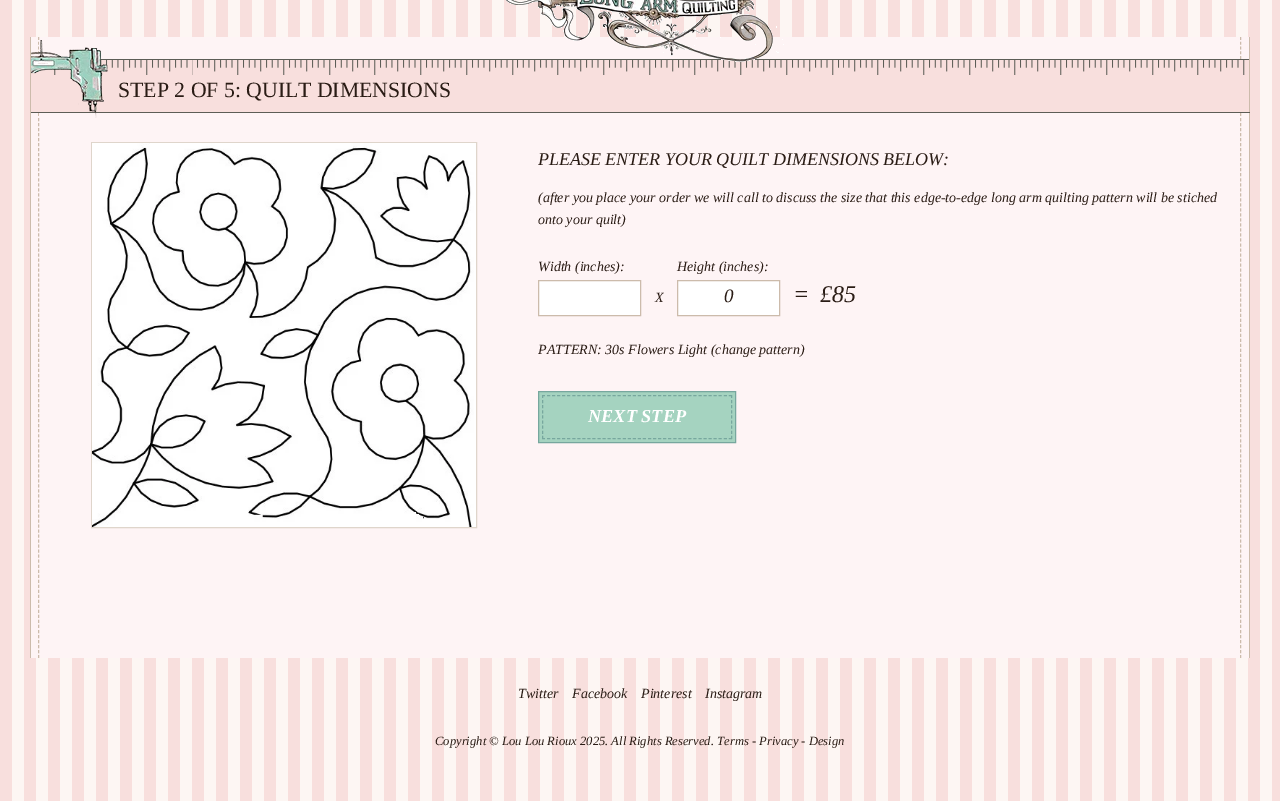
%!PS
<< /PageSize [1280 801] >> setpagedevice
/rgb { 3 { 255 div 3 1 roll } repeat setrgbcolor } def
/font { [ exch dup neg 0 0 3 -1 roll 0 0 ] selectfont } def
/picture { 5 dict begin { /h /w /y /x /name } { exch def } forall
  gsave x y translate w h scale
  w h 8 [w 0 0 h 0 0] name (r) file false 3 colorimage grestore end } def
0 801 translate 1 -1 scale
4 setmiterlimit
255 255 255 rgb
0 0 1280 801 rectfill
(img/1.rgb) 0 0 1280 801 picture
[
  [31 37 1218 22 254 244 245]
  [36 60 1212 52 248 223 221]
  [100 59 1150 1 93 93 86]
] { aload pop rgb rectfill } forall
(img/4.rgb) 31 60 1214 15 picture
(img/2.rgb) 506 0 278 62 picture
204 187 171 rgb
1249 37 1 22 rectfill
30 37 1 22 rectfill
[3 1.75] 0 setdash
1240.5 37 moveto 1240.5 59 lineto stroke
38.5 37 moveto 38.5 59 lineto stroke
[
  [1249 59 1 54 204 187 171]
  [30 112 1220 1 93 93 86]
  [30 59 1 54 204 187 171]
  [31 113 1218 545 254 244 245]
] { aload pop rgb rectfill } forall
204 187 171 rgb
[3 2.02] 0 setdash
38.5 113 moveto 38.5 658 lineto stroke
(img/3.rgb) 31 40 77 78 picture
1249 113 1 545 rectfill
30 113 1 545 rectfill
1240.5 113 moveto 1240.5 658 lineto stroke
223 213 203 rgb
[] 0 setdash
91.5 142.5 385 385 rectstroke
(img/5.rgb) 92 143 384 384 picture
255 255 255 rgb
538.5 280.5 moveto 640.5 280.5 lineto 640.5 315.5 lineto 538.5 315.5 lineto closepath gsave fill grestore
204 187 171 rgb
stroke
255 255 255 rgb
677.5 280.5 moveto 779.5 280.5 lineto 779.5 315.5 lineto 677.5 315.5 lineto closepath gsave fill grestore
204 187 171 rgb
stroke
165 211 192 rgb
538.5 391.5 moveto 735.5 391.5 lineto 735.5 442.5 lineto 538.5 442.5 lineto closepath gsave fill grestore
119 167 158 rgb
stroke
[3 2.05] 0 setdash
542 395.5 moveto 732 395.5 lineto stroke
[3 2.12] 0 setdash
731.5 395 moveto 731.5 439 lineto stroke
[3 2.05] 0 setdash
542 438.5 moveto 732 438.5 lineto stroke
[3 2.12] 0 setdash
542.5 395 moveto 542.5 439 lineto stroke
/LiberationSerif-Regular 21.75 font
42 28 21 rgb
118 97 moveto (STEP 2 OF 5: QUILT DIMENSIONS) show
/LiberationSerif-Italic 18 font
538 165 moveto (PLEASE ENTER YOUR QUILT DIMENSIONS BELOW:) show
/LiberationSerif-Italic 14 font
[
  [(\(after you place your order we will call to discuss the size that this edge-to-edge long arm quilting pattern will be stiched) 538 202]
  [(onto your quilt\)) 538 224]
  [(Width \(inches\):) 538 271]
  [(X) 655 302]
  [(Height \(inches\):) 677 271]
] { aload pop moveto show } forall
/LiberationSerif-Italic 19 font
724 302 moveto (0) show
/LiberationSerif-Italic 24 font
793 302 moveto (=) show
820 302 moveto (£85) show
/LiberationSerif-Italic 14 font
538 354 moveto (PATTERN: 30s Flowers Light \(change pattern\)) show
/LiberationSerif-BoldItalic 18.25 font
255 255 255 rgb
588 422 moveto (NEXT STEP) show
/LiberationSerif-Italic 14 font
42 28 21 rgb
[
  [(Twitter) 518 698]
  [(Facebook) 572 698]
  [(Pinterest) 641 698]
  [(Instagram) 705 698]
] { aload pop moveto show } forall
/LiberationSerif-Italic 12.6 font
435 745 moveto (Copyright © Lou Lou Rioux 2025. All Rights Reserved. Terms - Privacy - Design) show
showpage
